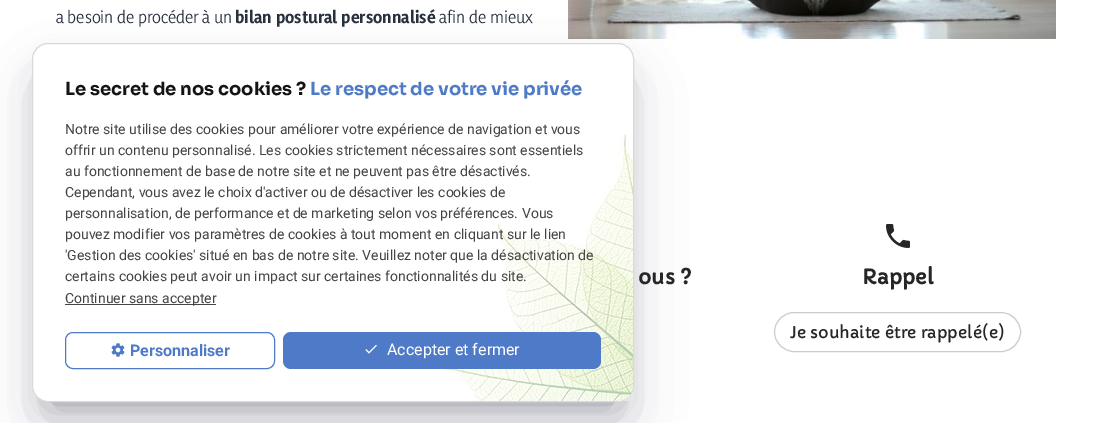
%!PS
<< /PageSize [1112 423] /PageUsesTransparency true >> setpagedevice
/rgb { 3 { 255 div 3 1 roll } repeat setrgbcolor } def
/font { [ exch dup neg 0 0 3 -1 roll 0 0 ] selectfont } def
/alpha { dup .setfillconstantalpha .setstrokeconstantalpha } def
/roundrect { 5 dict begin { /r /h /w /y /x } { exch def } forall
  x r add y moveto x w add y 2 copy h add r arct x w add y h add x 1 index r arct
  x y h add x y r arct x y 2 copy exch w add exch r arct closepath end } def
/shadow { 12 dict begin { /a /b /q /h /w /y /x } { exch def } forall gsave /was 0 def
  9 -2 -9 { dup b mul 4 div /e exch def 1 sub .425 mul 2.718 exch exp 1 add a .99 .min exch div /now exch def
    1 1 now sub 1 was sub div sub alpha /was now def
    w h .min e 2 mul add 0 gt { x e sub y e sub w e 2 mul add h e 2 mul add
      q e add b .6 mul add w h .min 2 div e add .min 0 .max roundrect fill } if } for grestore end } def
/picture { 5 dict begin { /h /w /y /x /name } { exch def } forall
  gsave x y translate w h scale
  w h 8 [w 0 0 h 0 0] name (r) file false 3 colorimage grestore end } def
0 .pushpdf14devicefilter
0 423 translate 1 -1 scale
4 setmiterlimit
255 255 255 rgb
0 0 1112 423 rectfill
(img/1.rgb) 568 0 488 39 picture
(img/2.rgb) 886 224 24 24 picture
204 204 204 rgb
774.5 312.5 246 39 19.5 roundrect stroke
0 0 0 rgb
50 79 566 323 0 18 0.3 shadow
50 50 93 rgb
44 85 578 335 4 30 0.25 shadow
255 255 255 rgb
32.5 43.5 601 358 15.5 roundrect gsave fill grestore
217 217 217 rgb
stroke
68 68 68 rgb
65 304 151 1 rectfill
78 122 199 rgb
65.5 332.5 209 36 7.5 roundrect stroke
(img/3.rgb) 111 343 14 14 picture
(img/5.rgb) 433 131 200 270 picture
283 332 318 37 8 roundrect fill
(img/4.rgb) 365 344 12 10 picture
/Yaldevi-Regular 16 font
40 47 61 rgb
56 23 moveto (a besoin de procéder à un) show
/Yaldevi-Bold 16 font
235 23 moveto (bilan postural personnalisé) show
/Yaldevi-Regular 16 font
439 23 moveto (afin de mieux) show
/Capriola-Bold 20 font
38 38 38 rgb
638 284 moveto (ous ?) show
862 284 moveto (Rappel) show
/Capriola-Regular 16 font
790 338 moveto (Je souhaite être rappelé\(e\)) show
/Sora-Bold 18 font
20 20 20 rgb
65 95 moveto (Le secret de nos cookies ?) show
78 122 199 rgb
310 95 moveto (Le respect de votre vie privée) show
/Roboto-Regular 14 font
68 68 68 rgb
[
  [(Notre site utilise des cookies pour améliorer votre expérience de navigation et vous) 65 134]
  [(offrir un contenu personnalisé. Les cookies strictement nécessaires sont essentiels) 65 155]
  [(au fonctionnement de base de notre site et ne peuvent pas être désactivés.) 65 176]
  [(Cependant, vous avez le choix d'activer ou de désactiver les cookies de) 65 197]
  [(personnalisation, de performance et de marketing selon vos préférences. Vous) 65 218]
  [(pouvez modifier vos paramètres de cookies à tout moment en cliquant sur le lien) 65 239]
  [('Gestion des cookies' situé en bas de notre site. Veuillez noter que la désactivation de) 65 260]
  [(certains cookies peut avoir un impact sur certaines fonctionnalités du site.) 65 281]
  [(Continuer sans accepter) 65 303]
] { aload pop moveto show } forall
/Roboto-Bold 16 font
78 122 199 rgb
130 356 moveto (Personnaliser) show
/Roboto-Regular 16 font
255 255 255 rgb
387 355 moveto (Accepter et fermer) show
.poppdf14devicefilter showpage
